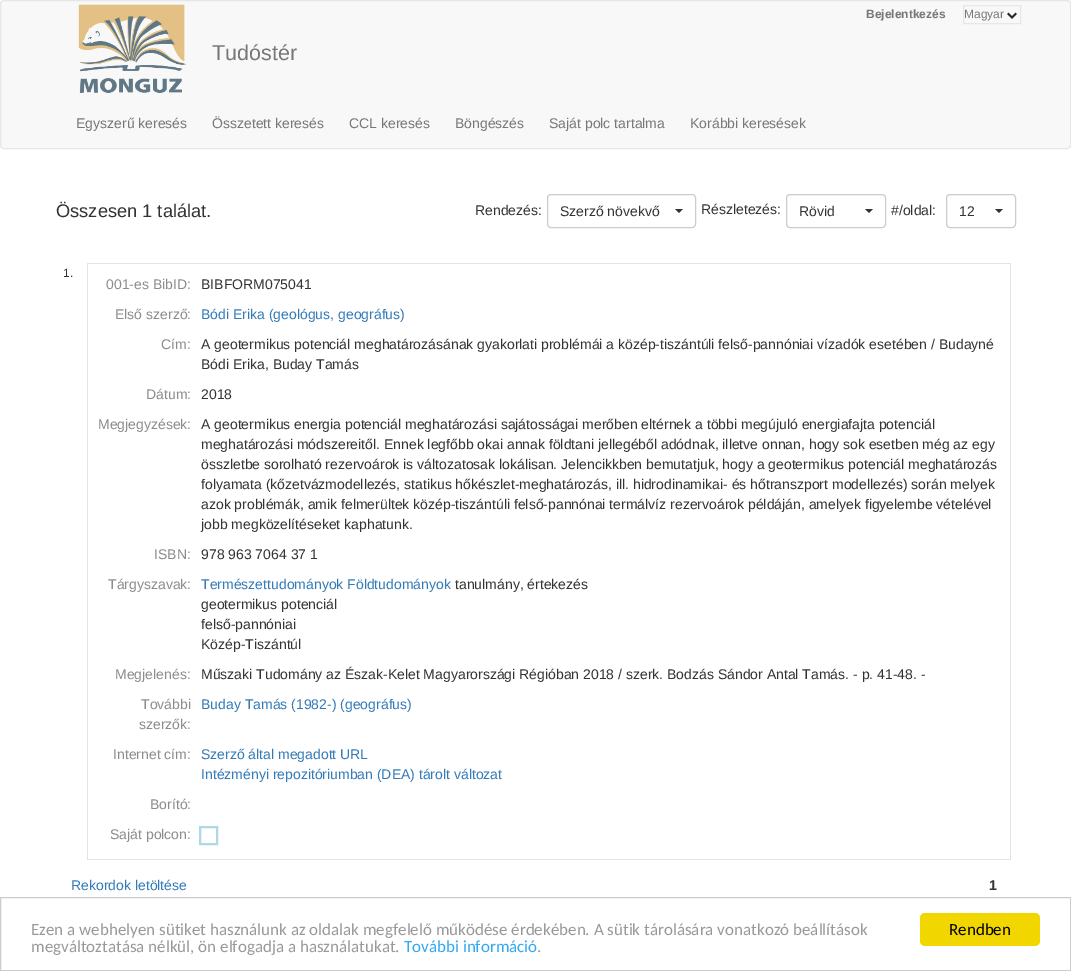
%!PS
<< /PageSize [1071 971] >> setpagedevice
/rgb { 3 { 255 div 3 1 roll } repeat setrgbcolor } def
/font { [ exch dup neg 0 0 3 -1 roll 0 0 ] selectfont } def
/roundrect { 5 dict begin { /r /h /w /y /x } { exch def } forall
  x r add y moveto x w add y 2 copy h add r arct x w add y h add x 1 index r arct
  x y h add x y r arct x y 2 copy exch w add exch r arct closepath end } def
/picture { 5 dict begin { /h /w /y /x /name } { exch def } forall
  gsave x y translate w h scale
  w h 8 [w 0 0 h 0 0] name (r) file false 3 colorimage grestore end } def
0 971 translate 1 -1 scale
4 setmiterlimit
255 255 255 rgb
0 0 1071 971 rectfill
248 248 248 rgb
0.5 0.5 1070 148 3.5 roundrect gsave fill grestore
231 231 231 rgb
stroke
(img/1.rgb) 1007 12 10 7 picture
963.5 5.5 57 18 rectstroke
(img/2.rgb) 78 4 109 89 picture
204 204 204 rgb
547.5 194.5 148 33 3.5 roundrect stroke
51 51 51 rgb
675 209 moveto 683 209 lineto 679 213 lineto closepath fill
204 204 204 rgb
786.5 194.5 99 33 3.5 roundrect stroke
51 51 51 rgb
865 209 moveto 873 209 lineto 869 213 lineto closepath fill
204 204 204 rgb
946.5 194.5 69 33 3.5 roundrect stroke
51 51 51 rgb
995 209 moveto 1003 209 lineto 999 213 lineto closepath fill
[
  [87 263 924 1 227 227 227]
  [1010 263 1 597 227 227 227]
  [87 859 924 1 227 227 227]
  [87 263 1 597 227 227 227]
] { aload pop rgb rectfill } forall
173 216 230 rgb
2 setlinewidth
200 827 17 17 rectstroke
204 204 204 rgb
1 setlinewidth
0.5 897.5 1070 73 rectstroke
241 214 0 rgb
920 913 120 33 5 roundrect fill
/LiberationSans-Bold 12 font
119 119 119 rgb
866 18 moveto (Bejelentkezés) show
/LiberationSans-Regular 12 font
964 18 moveto (Magyar) show
/LiberationSans-Regular 21.5 font
212 60 moveto (Tudóstér) show
/LiberationSans-Regular 14 font
[
  [(Egyszerű keresés) 76 128]
  [(Összetett keresés) 212 128]
  [(CCL keresés) 349 128]
  [(Böngészés) 455 128]
  [(Saját polc tartalma) 549 128]
  [(Korábbi keresések) 690 128]
] { aload pop moveto show } forall
/LiberationSans-Regular 18.25 font
51 51 51 rgb
56 217 moveto (Összesen 1 találat.) show
/LiberationSans-Regular 14 font
[
  [(Rendezés:) 475 215]
  [(Szerző növekvő) 560 216]
  [(Részletezés:) 701 214]
  [(Rövid) 799 216]
  [(#/oldal:) 891 215]
  [(12) 959 216]
] { aload pop moveto show } forall
/LiberationSans-Regular 12 font
63 277 moveto (1.) show
/LiberationSans-Regular 14 font
140 140 140 rgb
106 289 moveto (001-es BibID:) show
51 51 51 rgb
201 289 moveto (BIBFORM075041) show
140 140 140 rgb
115 319 moveto (Első szerző:) show
51 122 183 rgb
201 319 moveto (Bódi Erika \(geológus, geográfus\)) show
140 140 140 rgb
161 349 moveto (Cím:) show
51 51 51 rgb
201 349 moveto (A geotermikus potenciál meghatározásának gyakorlati problémái a közép-tiszántúli felső-pannóniai vízadók esetében / Budayné) show
201 369 moveto (Bódi Erika, Buday Tamás) show
140 140 140 rgb
146 399 moveto (Dátum:) show
51 51 51 rgb
201 399 moveto (2018) show
140 140 140 rgb
98 429 moveto (Megjegyzések:) show
51 51 51 rgb
[
  [(A geotermikus energia potenciál meghatározási sajátosságai merőben eltérnek a többi megújuló energiafajta potenciál) 201 429]
  [(meghatározási módszereitől. Ennek legfőbb okai annak földtani jellegéből adódnak, illetve onnan, hogy sok esetben még az egy) 201 449]
  [(összletbe sorolható rezervoárok is változatosak lokálisan. Jelencikkben bemutatjuk, hogy a geotermikus potenciál meghatározás) 201 469]
  [(folyamata \(kőzetvázmodellezés, statikus hőkészlet-meghatározás, ill. hidrodinamikai- és hőtranszport modellezés\) során melyek) 201 489]
  [(azok problémák, amik felmerültek közép-tiszántúli felső-pannónai termálvíz rezervoárok példáján, amelyek figyelembe vételével) 201 509]
  [(jobb megközelítéseket kaphatunk.) 201 529]
] { aload pop moveto show } forall
140 140 140 rgb
154 559 moveto (ISBN:) show
51 51 51 rgb
201 559 moveto (978 963 7064 37 1) show
140 140 140 rgb
108 589 moveto (Tárgyszavak:) show
51 122 183 rgb
201 589 moveto (Természettudományok Földtudományok) show
51 51 51 rgb
[
  [(tanulmány, értekezés) 455 589]
  [(geotermikus potenciál) 201 609]
  [(felső-pannóniai) 201 629]
  [(Közép-Tiszántúl) 201 649]
] { aload pop moveto show } forall
140 140 140 rgb
115 679 moveto (Megjelenés:) show
51 51 51 rgb
201 679 moveto (Műszaki Tudomány az Észak-Kelet Magyarországi Régióban 2018 / szerk. Bodzás Sándor Antal Tamás. - p. 41-48. -) show
140 140 140 rgb
141 709 moveto (További) show
139 729 moveto (szerzők:) show
51 122 183 rgb
201 709 moveto (Buday Tamás \(1982-\) \(geográfus\)) show
140 140 140 rgb
113 759 moveto (Internet cím:) show
51 122 183 rgb
201 759 moveto (Szerző által megadott URL) show
201 779 moveto (Intézményi repozitóriumban \(DEA\) tárolt változat) show
140 140 140 rgb
150 809 moveto (Borító:) show
110 839 moveto (Saját polcon:) show
51 122 183 rgb
71 890 moveto (Rekordok letöltése) show
/LiberationSans-Bold 14 font
51 51 51 rgb
989 890 moveto (1) show
/Carlito-Regular 17 font
153 153 153 rgb
31 935 moveto (Ezen a webhelyen sütiket használunk az oldalak megfelelő működése érdekében. A sütik tárolására vonatkozó beállítások) show
31 952 moveto (megváltoztatása nélkül, ön elfogadja a használatukat.) show
49 168 240 rgb
404 952 moveto (További információ) show
153 153 153 rgb
537 952 moveto (.) show
0 0 0 rgb
949 935 moveto (Rendben) show
showpage
